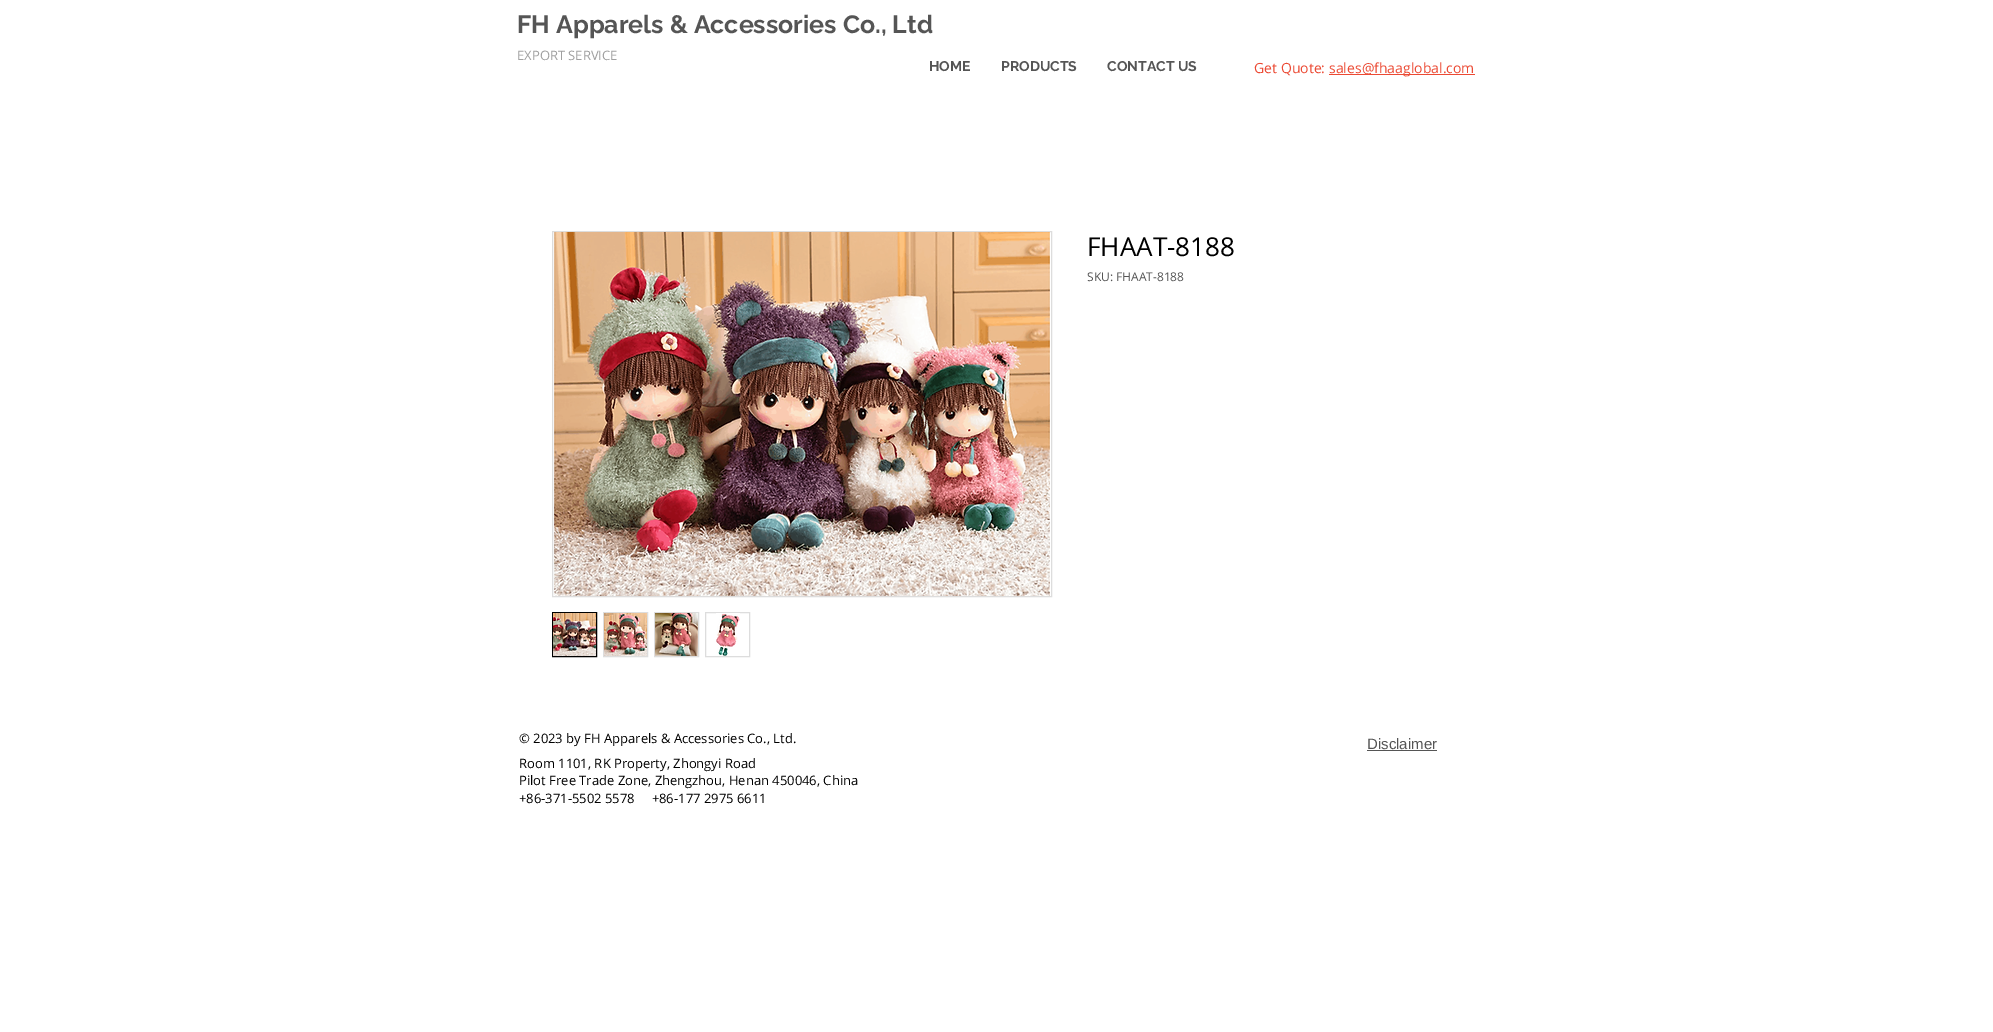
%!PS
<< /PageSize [1993 1032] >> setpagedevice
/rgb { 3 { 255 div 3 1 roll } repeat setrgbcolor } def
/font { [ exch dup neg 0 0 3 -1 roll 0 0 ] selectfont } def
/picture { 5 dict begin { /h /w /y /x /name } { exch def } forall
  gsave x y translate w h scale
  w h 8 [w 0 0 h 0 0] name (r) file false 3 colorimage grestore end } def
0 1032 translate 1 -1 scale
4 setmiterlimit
255 255 255 rgb
0 0 1993 1032 rectfill
236 74 52 rgb
1329 74 146 1 rectfill
221 221 221 rgb
552.5 231.5 499 365 rectstroke
(img/1.rgb) 554 232 496 364 picture
0 0 0 rgb
552.5 612.5 44 44 rectstroke
(img/2.rgb) 553 613 43 43 picture
221 221 221 rgb
603.5 612.5 44 44 rectstroke
(img/3.rgb) 604 613 43 43 picture
654.5 612.5 44 44 rectstroke
(img/4.rgb) 655 613 43 43 picture
705.5 612.5 44 44 rectstroke
(img/5.rgb) 716 613 24 43 picture
85 85 85 rgb
1367 750 70 1 rectfill
/Raleway-Bold 25 font
517 33 moveto (FH Apparels & Accessories Co., Ltd) show
/OpenSans-Regular 13 font
160 160 160 rgb
517 60 moveto (EXPORT SERVICE) show
/Raleway-Bold 14 font
85 85 85 rgb
[
  [(HOME) 929 71]
  [(PRODUCTS) 1001 71]
  [(CONTACT US) 1107 71]
] { aload pop moveto show } forall
/OpenSans-Regular 14 font
236 74 52 rgb
1254 73 moveto (Get Quote:) show
1329 73 moveto (sales@fhaaglobal.com) show
/OpenSans-Regular 26 font
0 0 0 rgb
1087 256 moveto (FHAAT-8188) show
/OpenSans-Regular 12 font
85 85 85 rgb
1087 281 moveto (SKU: FHAAT-8188) show
/OpenSans-Regular 13 font
0 0 0 rgb
[
  [(© 2023 by FH Apparels & Accessories Co., Ltd.) 519 743]
  [(Room 1101, RK Property, Zhongyi Road) 519 768]
  [(Pilot Free Trade Zone, Zhengzhou, Henan 450046, China) 519 785]
  [(+86-371-5502 5578     +86-177 2975 6611) 519 803]
] { aload pop moveto show } forall
/LiberationSans-Regular 15 font
85 85 85 rgb
1367 749 moveto (Disclaimer) show
showpage
